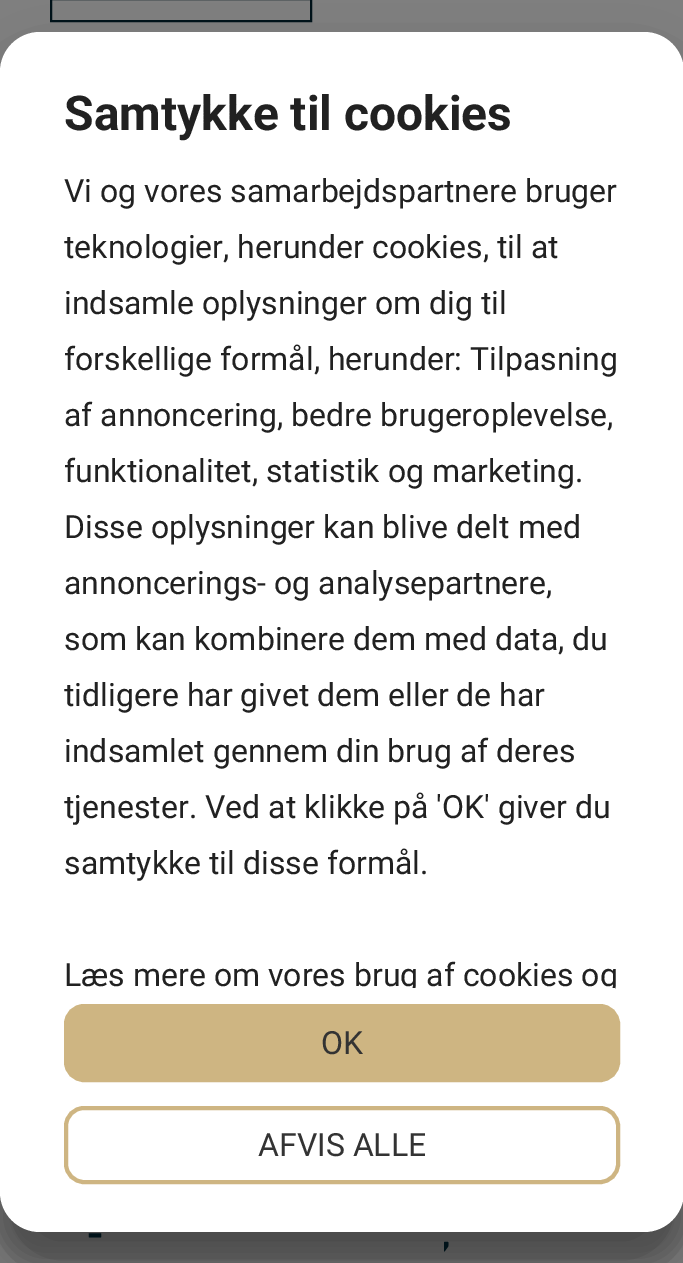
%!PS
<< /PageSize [683 1263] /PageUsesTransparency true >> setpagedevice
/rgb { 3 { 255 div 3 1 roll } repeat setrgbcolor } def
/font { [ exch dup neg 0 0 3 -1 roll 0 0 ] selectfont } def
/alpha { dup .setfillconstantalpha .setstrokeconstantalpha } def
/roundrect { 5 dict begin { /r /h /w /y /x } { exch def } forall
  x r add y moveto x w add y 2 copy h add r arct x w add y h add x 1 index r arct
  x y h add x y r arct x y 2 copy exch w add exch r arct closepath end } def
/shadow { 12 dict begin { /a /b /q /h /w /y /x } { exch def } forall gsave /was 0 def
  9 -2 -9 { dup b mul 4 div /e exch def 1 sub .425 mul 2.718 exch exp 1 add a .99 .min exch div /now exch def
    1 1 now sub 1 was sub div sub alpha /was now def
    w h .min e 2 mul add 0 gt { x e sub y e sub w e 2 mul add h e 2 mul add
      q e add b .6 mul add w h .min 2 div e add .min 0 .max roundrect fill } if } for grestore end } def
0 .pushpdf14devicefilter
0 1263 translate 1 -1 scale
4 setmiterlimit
128 128 128 rgb
0 0 683 1263 rectfill
0 0 0 rgb
0 62 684 1200 40 12 0.22 shadow
0 18 25 rgb
2 setlinewidth
51 -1 260 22 rectstroke
0 0 0 rgb
0 70 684 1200 40 38 0.3 shadow
255 255 255 rgb
0 32 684 1200 40 roundrect fill
206 181 130 rgb
66 1006 552 74 18 roundrect gsave fill grestore
4 setlinewidth
stroke
66 1108 552 74 18 roundrect stroke
/Roboto-Bold 48 font
33 33 33 rgb
64 130 moveto (Samtykke til cookies) show
/Roboto-Regular 32 font
[
  [(Vi og vores samarbejdspartnere bruger) 64 202]
  [(teknologier, herunder cookies, til at) 64 258]
  [(indsamle oplysninger om dig til) 64 314]
  [(forskellige formål, herunder: Tilpasning) 64 370]
  [(af annoncering, bedre brugeroplevelse,) 64 426]
  [(funktionalitet, statistik og marketing.) 64 482]
  [(Disse oplysninger kan blive delt med) 64 538]
  [(annoncerings- og analysepartnere,) 64 594]
  [(som kan kombinere dem med data, du) 64 650]
  [(tidligere har givet dem eller de har) 64 706]
  [(indsamlet gennem din brug af deres) 64 762]
  [(tjenester. Ved at klikke på 'OK' giver du) 64 818]
  [(samtykke til disse formål.) 64 874]
  [(Læs mere om vores brug af cookies og) 64 986]
] { aload pop moveto show } forall
255 255 255 rgb
402 988 213 5 rectfill
51 51 51 rgb
321 1054 moveto (OK) show
258 1156 moveto (AFVIS ALLE) show
/DINNext-Medium 44 font
0 18 25 rgb
87 1247 moveto (-) show
442 1247 moveto (,) show
.poppdf14devicefilter showpage
